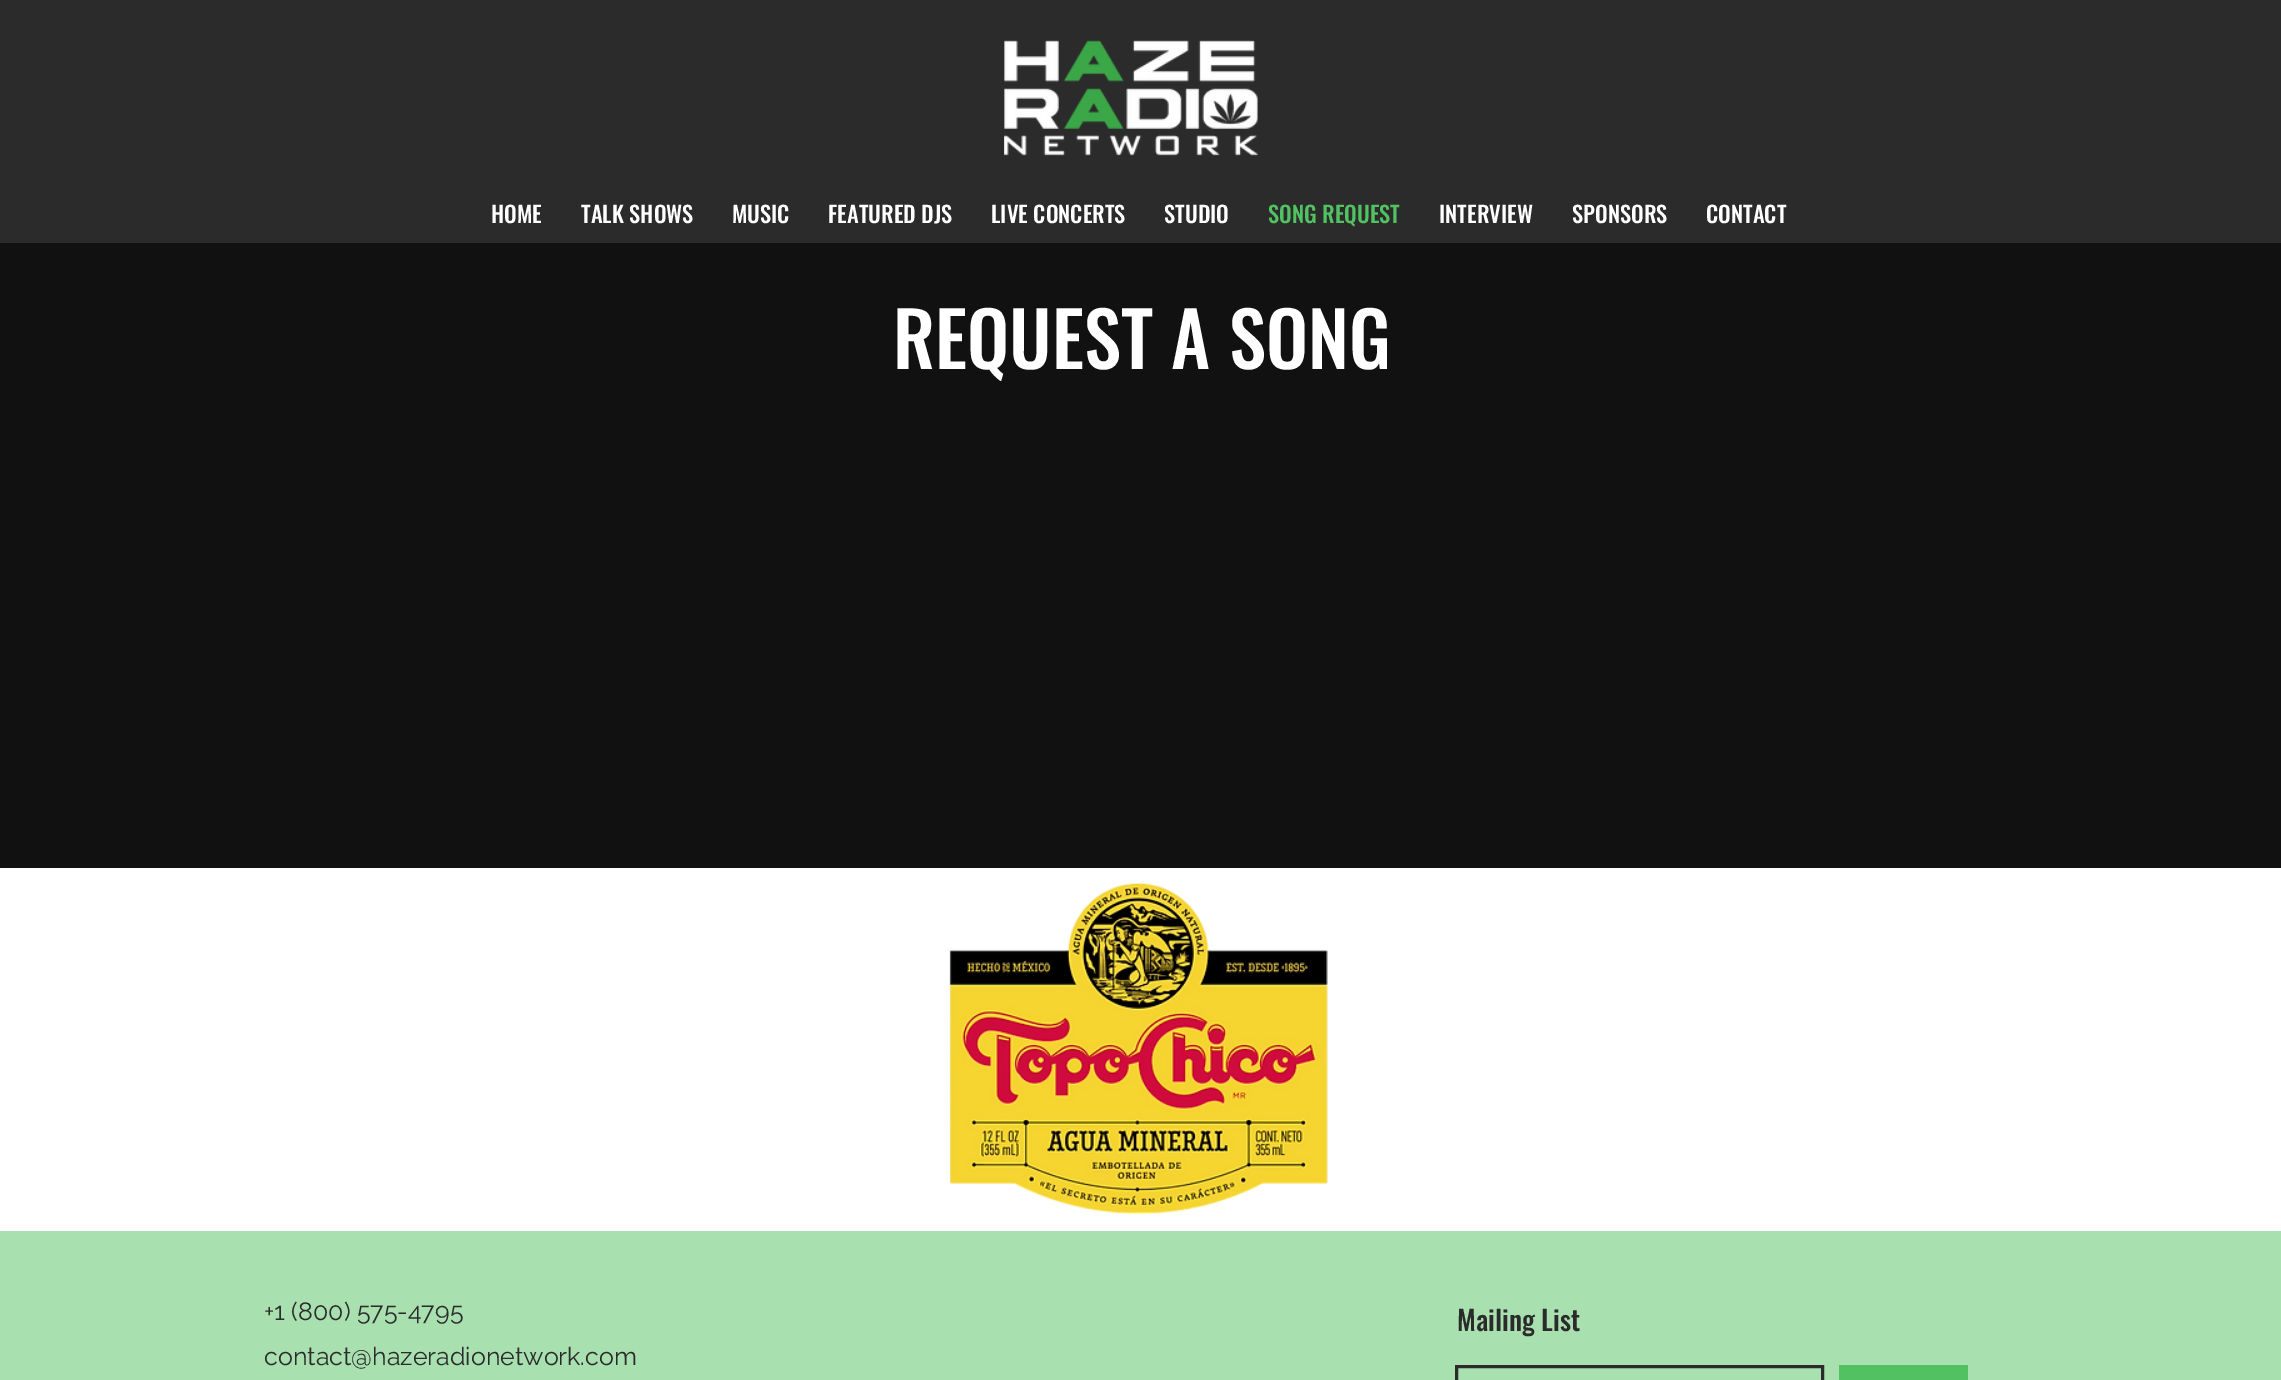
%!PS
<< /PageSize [2281 1380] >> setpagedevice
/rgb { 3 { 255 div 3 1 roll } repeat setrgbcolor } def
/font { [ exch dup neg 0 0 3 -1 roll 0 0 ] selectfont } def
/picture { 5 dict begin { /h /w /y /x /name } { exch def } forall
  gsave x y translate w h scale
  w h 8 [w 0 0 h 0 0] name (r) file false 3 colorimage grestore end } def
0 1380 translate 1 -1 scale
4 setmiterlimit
17 17 17 rgb
0 0 2281 1380 rectfill
43 43 43 rgb
0 0 2281 243 rectfill
(img/1.rgb) 1004 40 254 116 picture
255 255 255 rgb
0 868 2281 363 rectfill
(img/2.rgb) 949 882 379 332 picture
168 224 176 rgb
0 1231 2281 149 rectfill
43 43 43 rgb
3 setlinewidth
1456.5 1366.5 366 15 rectstroke
81 193 98 rgb
1839 1365 129 15 rectfill
/Oswald-Medium 22.5 font
255 255 255 rgb
[
  [(HOME) 491 223]
  [(TALK SHOWS) 581 223]
  [(MUSIC) 732 223]
  [(FEATURED DJS) 828 223]
  [(LIVE CONCERTS) 991 223]
  [(STUDIO) 1164 223]
] { aload pop moveto show } forall
81 193 98 rgb
1268 223 moveto (SONG REQUEST) show
255 255 255 rgb
[
  [(INTERVIEW) 1439 223]
  [(SPONSORS) 1572 223]
  [(CONTACT) 1706 223]
] { aload pop moveto show } forall
/Oswald-Medium 75 font
893 369 moveto (REQUEST A SONG) show
/Raleway-Regular 25 font
43 43 43 rgb
264 1320 moveto (+1 \(800\) 575-4795) show
264 1365 moveto (contact@hazeradionetwork.com) show
/Oswald-Medium 27.5 font
1457 1331 moveto (Mailing List) show
showpage
